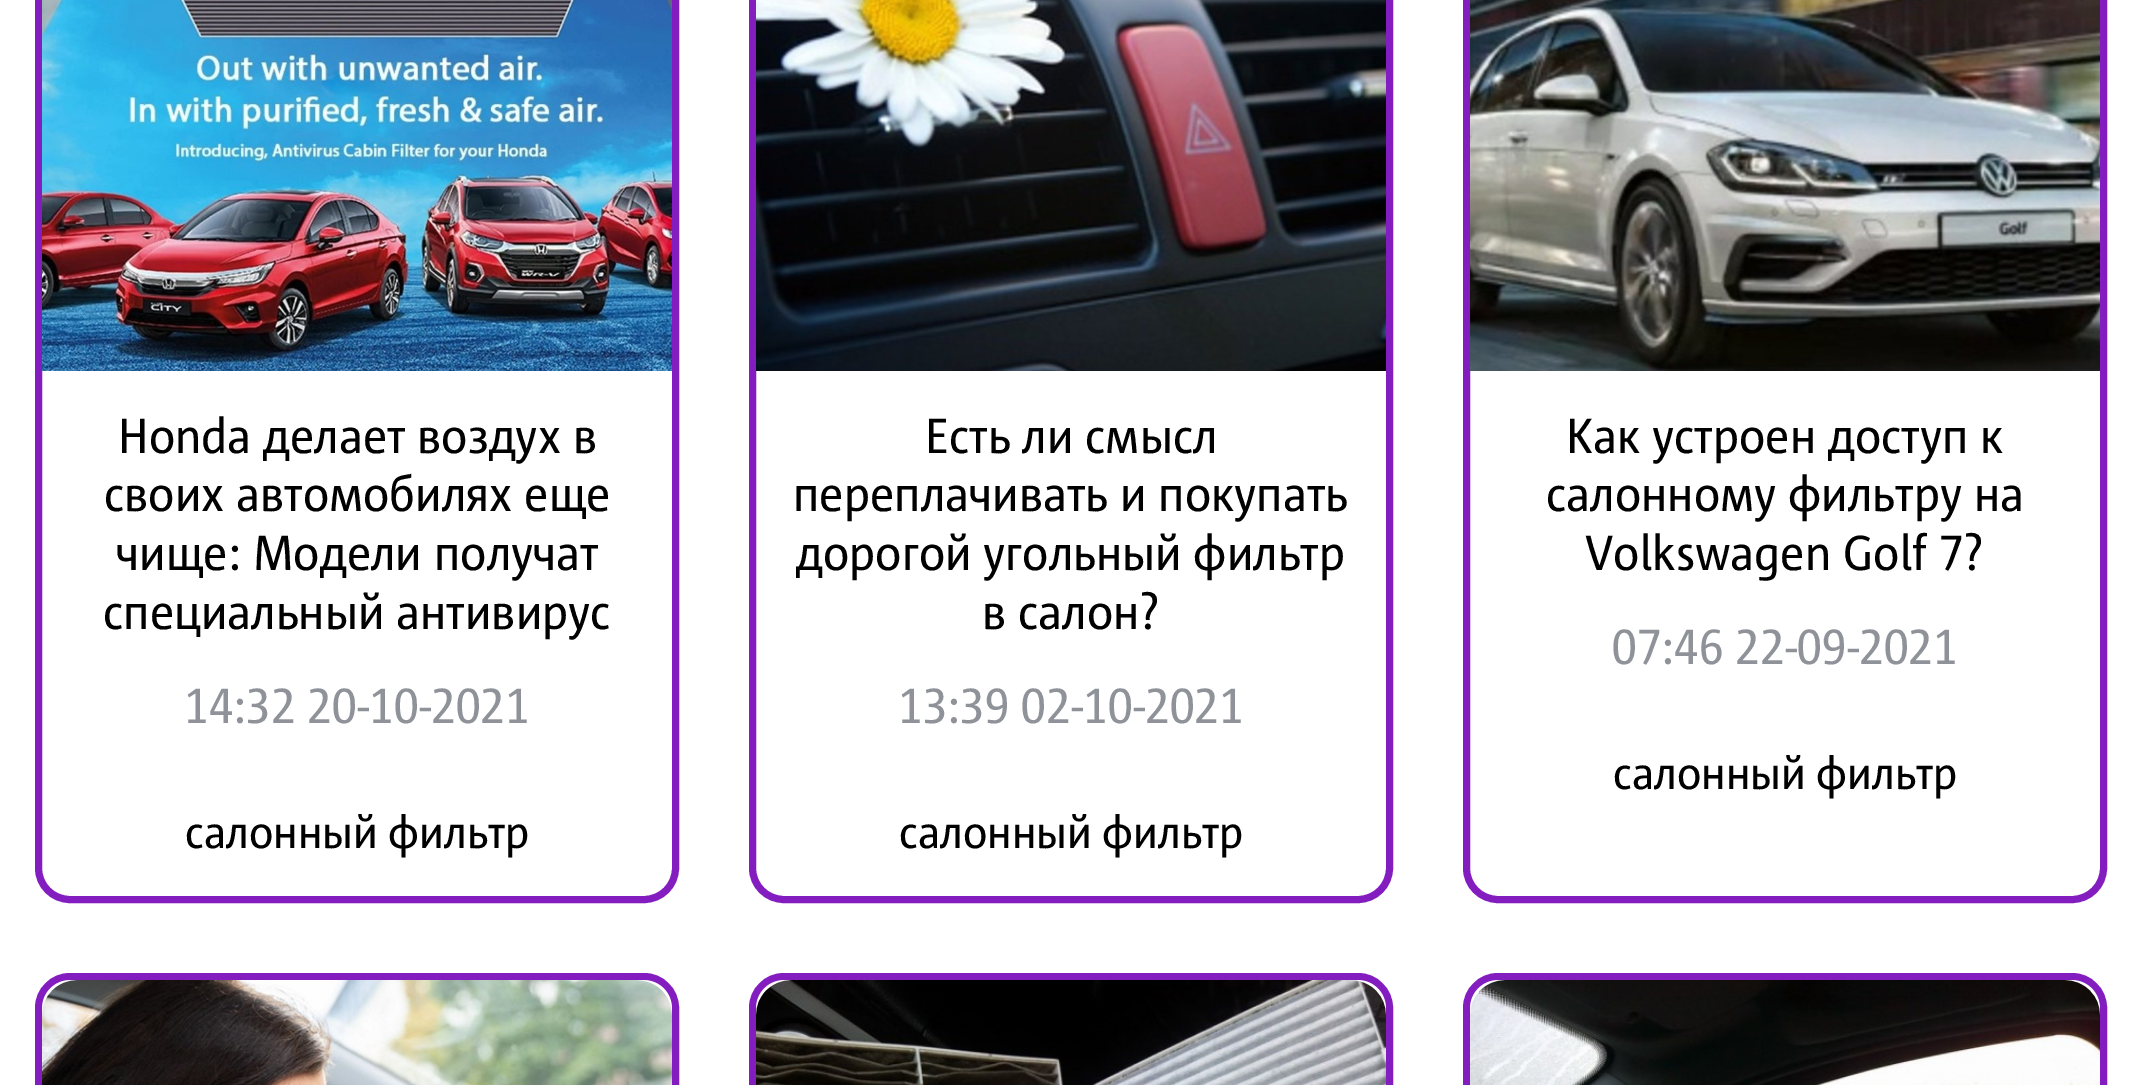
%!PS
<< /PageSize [2141 1085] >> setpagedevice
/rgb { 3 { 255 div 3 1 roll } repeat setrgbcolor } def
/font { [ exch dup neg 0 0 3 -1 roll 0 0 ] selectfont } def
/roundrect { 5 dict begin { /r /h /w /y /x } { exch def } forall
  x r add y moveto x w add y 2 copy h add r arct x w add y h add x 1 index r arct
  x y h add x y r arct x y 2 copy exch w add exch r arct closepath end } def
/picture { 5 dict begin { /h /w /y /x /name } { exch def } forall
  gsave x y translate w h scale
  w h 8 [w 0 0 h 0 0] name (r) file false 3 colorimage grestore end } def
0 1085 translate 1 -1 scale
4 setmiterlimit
255 255 255 rgb
0 0 2141 1085 rectfill
131 29 191 rgb
7 setlinewidth
38.5 -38.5 637 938 31.5 roundrect stroke
(img/1.rgb) 42 0 630 371 picture
752.5 -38.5 637 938 31.5 roundrect stroke
(img/2.rgb) 756 0 630 371 picture
1466.5 -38.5 637 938 31.5 roundrect stroke
(img/3.rgb) 1470 0 630 371 picture
38.5 976.5 637 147 31.5 roundrect stroke
(img/4.rgb) 42 980 630 105 picture
752.5 976.5 637 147 31.5 roundrect stroke
(img/5.rgb) 756 980 630 105 picture
1466.5 976.5 637 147 31.5 roundrect stroke
(img/6.rgb) 1470 980 630 105 picture
/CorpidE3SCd-Regular 49 font
0 0 0 rgb
[
  [(Honda делает воздух в) 118 453]
  [(своих автомобилях еще) 104 511]
  [(чище: Модели получат) 116 570]
  [(специальный антивирус) 103 629]
] { aload pop moveto show } forall
143 147 153 rgb
184 723 moveto (14:32 20-10-2021) show
/CorpidE3SCd-Regular 45.5 font
0 0 0 rgb
185 848 moveto (салонный фильтр) show
/CorpidE3SCd-Regular 49 font
[
  [(Есть ли смысл) 925 453]
  [(переплачивать и покупать) 793 511]
  [(дорогой угольный фильтр) 796 570]
  [(в салон?) 982 629]
] { aload pop moveto show } forall
143 147 153 rgb
898 723 moveto (13:39 02-10-2021) show
/CorpidE3SCd-Regular 45.5 font
0 0 0 rgb
899 848 moveto (салонный фильтр) show
/CorpidE3SCd-Regular 49 font
[
  [(Как устроен доступ к) 1566 453]
  [(салонному фильтру на) 1546 511]
  [(Volkswagen Golf 7?) 1585 570]
] { aload pop moveto show } forall
143 147 153 rgb
1612 664 moveto (07:46 22-09-2021) show
/CorpidE3SCd-Regular 45.5 font
0 0 0 rgb
1613 789 moveto (салонный фильтр) show
showpage
